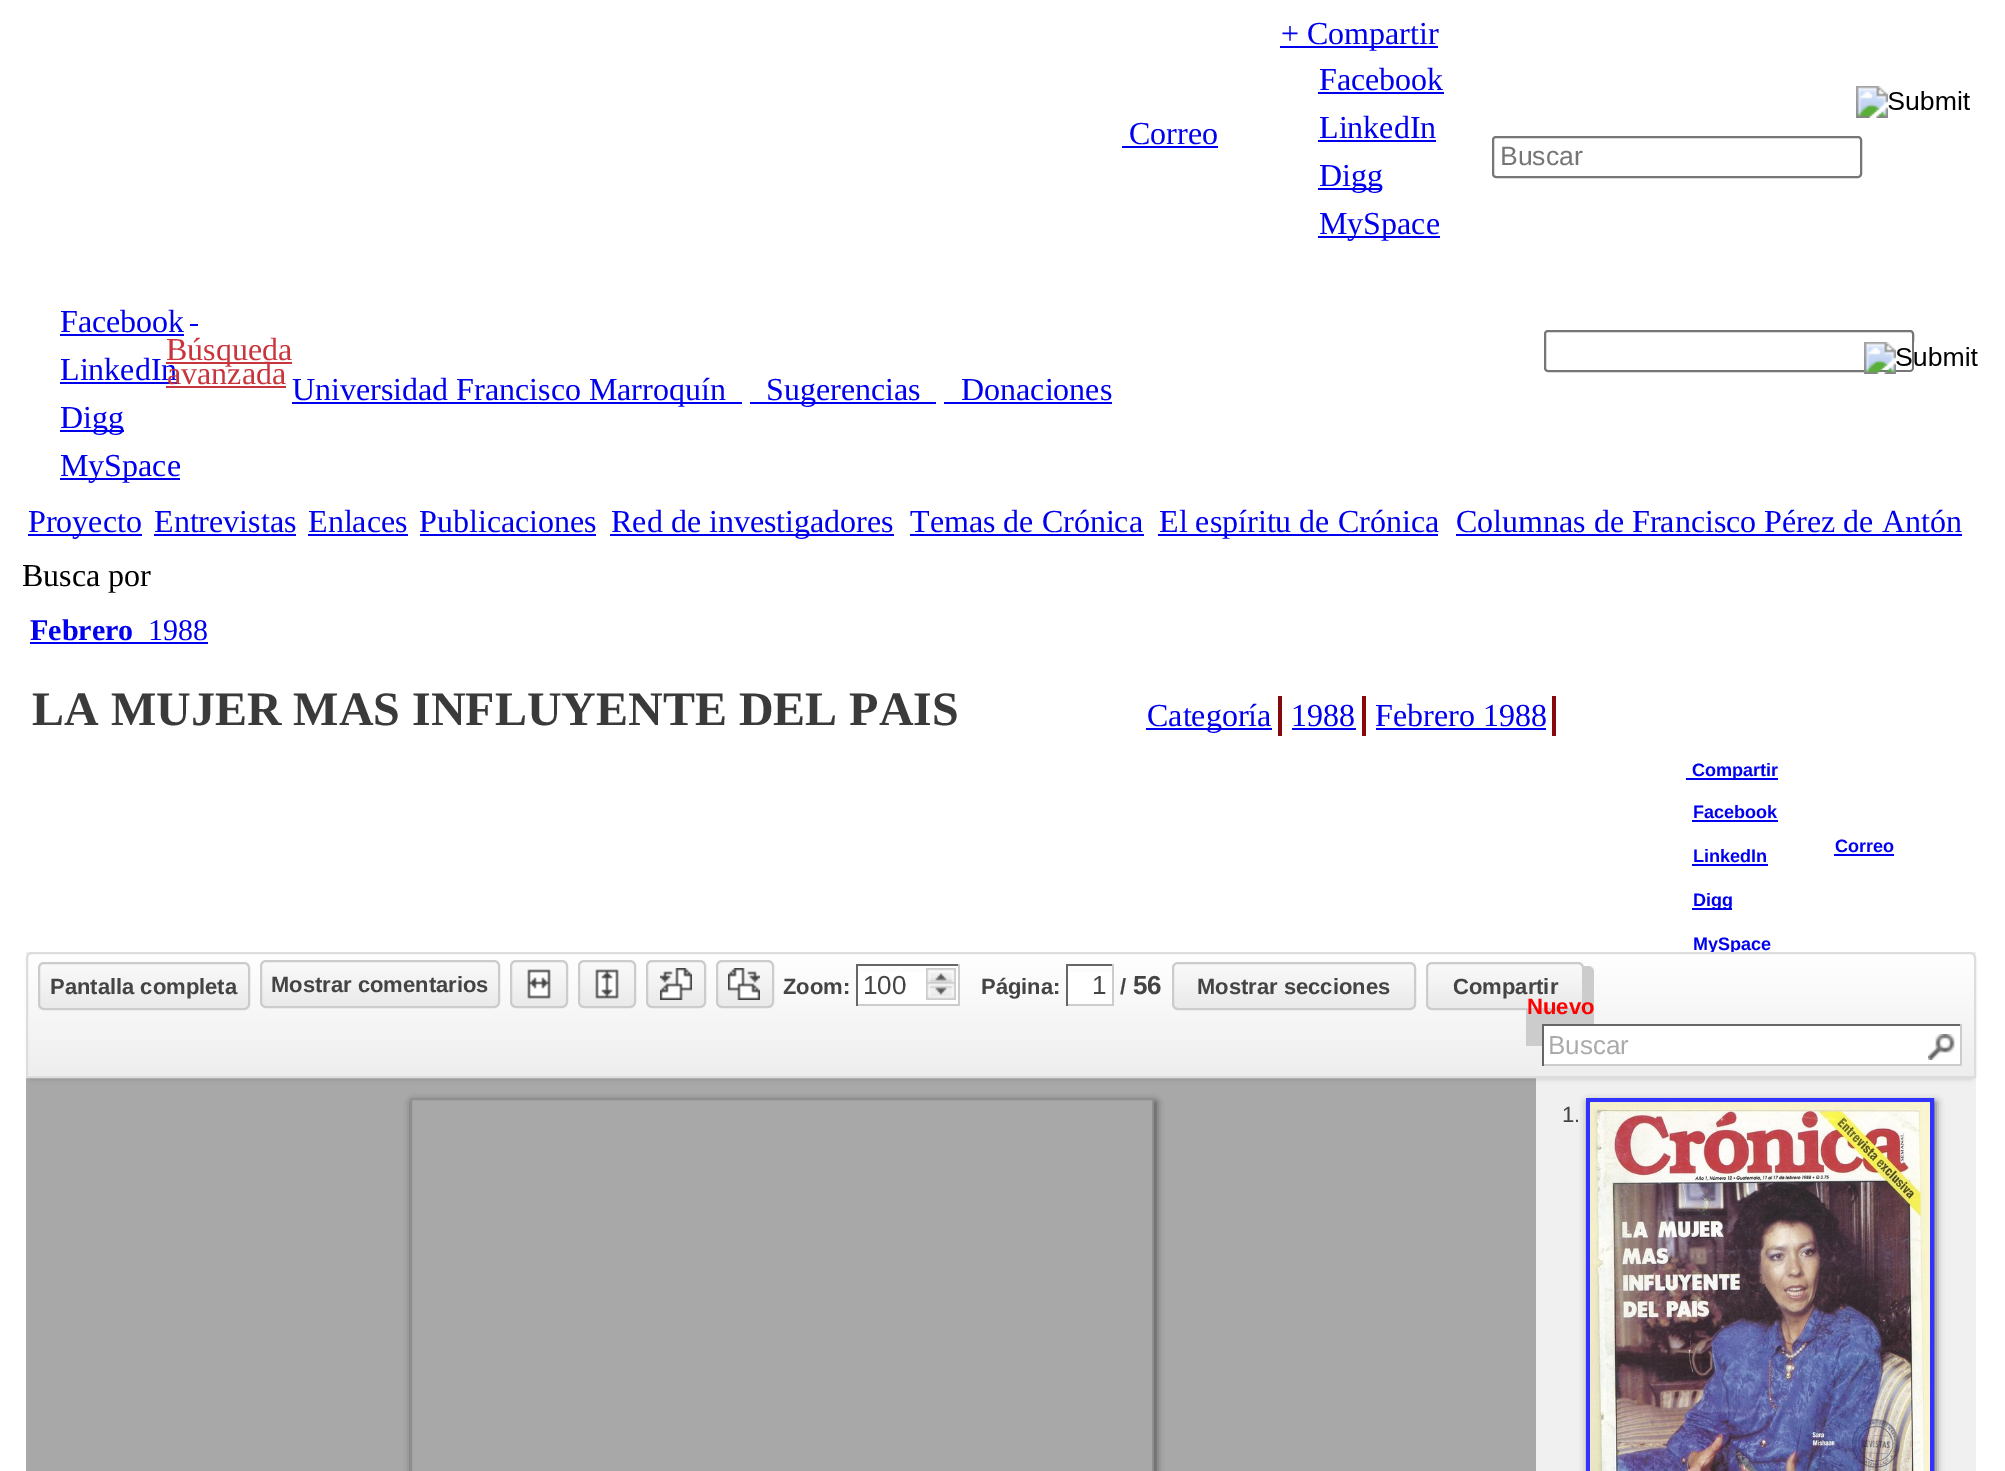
%!PS
<< /PageSize [2005 1471] /PageUsesTransparency true >> setpagedevice
/rgb { 3 { 255 div 3 1 roll } repeat setrgbcolor } def
/font { [ exch dup neg 0 0 3 -1 roll 0 0 ] selectfont } def
/alpha { dup .setfillconstantalpha .setstrokeconstantalpha } def
/roundrect { 5 dict begin { /r /h /w /y /x } { exch def } forall
  x r add y moveto x w add y 2 copy h add r arct x w add y h add x 1 index r arct
  x y h add x y r arct x y 2 copy exch w add exch r arct closepath end } def
/shadow { 12 dict begin { /a /b /q /h /w /y /x } { exch def } forall gsave /was 0 def
  9 -2 -9 { dup b mul 4 div /e exch def 1 sub .425 mul 2.718 exch exp 1 add a .99 .min exch div /now exch def
    1 1 now sub 1 was sub div sub alpha /was now def
    w h .min e 2 mul add 0 gt { x e sub y e sub w e 2 mul add h e 2 mul add
      q e add b .6 mul add w h .min 2 div e add .min 0 .max roundrect fill } if } for grestore end } def
/picture { 5 dict begin { /h /w /y /x /name } { exch def } forall
  gsave x y translate w h scale
  w h 8 [w 0 0 h 0 0] name (r) file false 3 colorimage grestore end } def
0 .pushpdf14devicefilter
0 1471 translate 1 -1 scale
4 setmiterlimit
255 255 255 rgb
0 0 2005 1471 rectfill
[
  [1122 146 96 2 0 0 238]
  [1280 46 158 2 0 0 238]
  [1318 92 126 2 0 0 238]
  [1318 140 118 2 0 0 238]
  [1318 188 64 2 0 0 238]
  [1318 236 122 2 0 0 238]
] { aload pop rgb rectfill } forall
(img/1.rgb) 1856 86 114 32 picture
118 118 118 rgb
2 setlinewidth
1493 137 368 40 3 roundrect stroke
[
  [60 334 124 2 0 0 238]
  [60 382 118 2 0 0 238]
  [60 430 64 2 0 0 238]
  [60 478 120 2 0 0 238]
  [190 324 8 2 0 0 238]
  [166 386 120 2 200 53 61]
] { aload pop rgb rectfill } forall
118 118 118 rgb
1545 331 368 40 3 roundrect stroke
(img/2.rgb) 1864 342 114 32 picture
[
  [292 402 450 2 0 0 238]
  [750 402 186 2 0 0 238]
  [944 402 168 2 0 0 238]
  [28 534 114 2 0 0 238]
  [154 534 142 2 0 0 238]
  [308 534 100 2 0 0 238]
  [420 534 176 2 0 0 238]
  [610 534 284 2 0 0 238]
  [910 534 234 2 0 0 238]
  [1158 534 280 2 0 0 238]
  [1456 534 506 2 0 0 238]
  [30 642 178 2 0 0 238]
  [1278 696 4 40 133 8 10]
  [1146 728 126 2 0 0 238]
  [1362 696 4 40 133 8 10]
  [1292 728 64 2 0 0 238]
  [1552 696 4 40 133 8 10]
  [1376 728 170 2 0 0 238]
  [1686 778 92 2 0 0 238]
  [1692 820 86 2 0 0 238]
  [1692 864 76 2 0 0 238]
  [1692 908 40 2 0 0 238]
  [1834 854 60 2 0 0 238]
  [26 952 1950 519 240 240 240]
  [26 1078 1510 393 168 168 168]
] { aload pop rgb rectfill } forall
0 0 0 rgb
28 958 1946 122 4 2 0.1 shadow
gsave
32 952 moveto 1970 952 lineto 1973.5 952 1976 954.5 1976 958 curveto 1976 1078 lineto 26 1078 lineto 26 958 lineto 26 954.5 28.5 952 32 952 curveto closepath clip newpath
gsave 26 954 moveto 1976 954 lineto 1976 1076 lineto 26 1076 lineto closepath clip newpath
<< /ShadingType 2 /ColorSpace /DeviceRGB /Coords [1001 954 1001 1076] /Extend [true true] /Function << /FunctionType 2 /Domain [0 1] /C0 [1 1 1] /C1 [0.933 0.933 0.933] /N 1 >> >> shfill grestore
grestore
gsave
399 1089 moveto 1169 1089 lineto 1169 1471 lineto 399 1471 lineto closepath 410 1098 moveto 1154 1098 lineto 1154 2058 lineto 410 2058 lineto closepath eoclip newpath
71 71 71 rgb
412 1102 744 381 0 4 1 shadow
grestore
143 143 143 rgb
411 1099 742 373 rectstroke
102 102 102 rgb
1588 1102 348 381 0 4 1 shadow
51 51 255 rgb
4 setlinewidth
1588 1100 344 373 rectstroke
(img/19.rgb) 1590 1102 340 369 picture
/LiberationSerif-Regular 32 font
0 0 238 rgb
[
  [(Correo) 1129 144]
  [(+ Compartir) 1281 44]
  [(Facebook) 1319 90]
  [(LinkedIn) 1319 138]
  [(Digg) 1319 186]
  [(MySpace) 1319 234]
] { aload pop moveto show } forall
/LiberationSans-Regular 26.5 font
117 117 117 rgb
1500 165 moveto (Buscar) show
/LiberationSerif-Regular 32 font
0 0 238 rgb
[
  [(Facebook) 60 332]
  [(LinkedIn) 60 380]
  [(Digg) 60 428]
  [(MySpace) 60 476]
] { aload pop moveto show } forall
200 53 61 rgb
166 362 126 2 rectfill
167 384 moveto (avanzada) show
166 360 moveto (Búsqueda) show
0 0 238 rgb
[
  [(Universidad Francisco Marroquín) 292 400]
  [(Sugerencias) 766 400]
  [(Donaciones) 961 400]
  [(Proyecto) 28 532]
  [(Entrevistas) 154 532]
  [(Enlaces) 308 532]
  [(Publicaciones) 419 532]
  [(Red de investigadores) 611 532]
  [(Temas de Crónica) 910 532]
  [(El espíritu de Crónica) 1159 532]
  [(Columnas de Francisco Pérez de Antón) 1456 532]
] { aload pop moveto show } forall
0 0 0 rgb
22 586 moveto (Busca por) show
/LiberationSerif-Bold 30 font
0 0 238 rgb
30 640 moveto (Febrero) show
/LiberationSerif-Regular 30 font
148 640 moveto (1988) show
/LiberationSerif-Bold 48 font
57 58 57 rgb
32 725 moveto (LA MUJER MAS INFLUYENTE DEL PAIS) show
/LiberationSerif-Regular 32 font
0 0 238 rgb
[
  [(Categoría) 1147 726]
  [(1988) 1291 726]
  [(Febrero 1988) 1375 726]
] { aload pop moveto show } forall
/LiberationSans-Bold 18 font
[
  [(Compartir) 1692 776]
  [(Facebook) 1693 818]
  [(LinkedIn) 1693 862]
  [(Digg) 1693 906]
  [(MySpace) 1693 950]
  [(Correo) 1835 852]
] { aload pop moveto show } forall
221 221 221 rgb
2 setlinewidth
32 953 moveto 1970 953 lineto 1973 953 1975 955 1975 958 curveto 1975 1077 lineto 27 1077 lineto 27 958 lineto 27 955 29 953 32 953 curveto closepath stroke
(img/3.rgb) 38 964 212 46 picture
204 204 204 rgb
39 963 210 46 5 roundrect stroke
/LiberationSans-Bold 22 font
68 68 68 rgb
50 994 moveto (Pantalla completa) show
(img/5.rgb) 260 965 240 38 picture
(img/4.rgb) 260 962 240 46 picture
204 204 204 rgb
261 961 238 46 5 roundrect stroke
68 68 68 rgb
271 992 moveto (Mostrar comentarios) show
(img/6.rgb) 510 962 58 44 picture
(img/7.rgb) 527 969 24 30 picture
204 204 204 rgb
511 961 56 46 5 roundrect stroke
(img/6.rgb) 578 962 58 44 picture
(img/8.rgb) 595 969 24 30 picture
579 961 56 46 5 roundrect stroke
(img/9.rgb) 646 962 60 44 picture
(img/10.rgb) 660 968 32 32 picture
647 961 58 46 5 roundrect stroke
(img/6.rgb) 716 962 58 44 picture
(img/11.rgb) 728 968 32 32 picture
717 961 56 46 5 roundrect stroke
68 68 68 rgb
783 994 moveto (Zoom:) show
[
  [858 972 100 32 255 255 255]
  [856 964 104 2 102 102 102]
  [958 964 2 42 204 204 204]
  [856 1004 104 2 204 204 204]
  [856 964 2 42 102 102 102]
] { aload pop rgb rectfill } forall
/LiberationSans-Regular 26 font
68 68 68 rgb
863 994 moveto (100) show
(img/12.rgb) 926 968 30 14 picture
(img/13.rgb) 926 982 30 18 picture
/LiberationSans-Bold 22 font
981 994 moveto (Página:) show
[
  [1068 972 44 32 255 255 255]
  [1066 964 48 2 102 102 102]
  [1112 964 2 42 204 204 204]
  [1066 1004 48 2 204 204 204]
  [1066 964 2 42 102 102 102]
] { aload pop rgb rectfill } forall
/LiberationSans-Regular 26 font
68 68 68 rgb
1092 994 moveto (1) show
/LiberationSans-Bold 22 font
1120 994 moveto (/) show
/LiberationSans-Bold 26 font
1133 994 moveto (56) show
(img/15.rgb) 1172 967 244 38 picture
(img/14.rgb) 1172 964 244 46 picture
204 204 204 rgb
1173 963 242 46 5 roundrect stroke
/LiberationSans-Bold 22 font
68 68 68 rgb
1197 994 moveto (Mostrar secciones) show
(img/16.rgb) 1426 967 1 38 picture
204 204 204 rgb
1526 966 moveto 1588 966 lineto 1591.5 966 1594 968.5 1594 972 curveto 1594 1040 lineto 1594 1043.5 1591.5 1046 1588 1046 curveto 1526 1046 lineto closepath fill
(img/17.rgb) 1426 964 158 46 picture
1427 963 156 46 5 roundrect stroke
68 68 68 rgb
1453 994 moveto (Compartir) show
255 0 0 rgb
1527 1014 moveto (Nuevo) show
[
  [1544 1026 416 38 255 255 255]
  [1542 1024 420 2 102 102 102]
  [1960 1024 2 42 204 204 204]
  [1542 1064 420 2 204 204 204]
  [1542 1024 2 42 102 102 102]
] { aload pop rgb rectfill } forall
/LiberationSans-Regular 26 font
170 170 170 rgb
1548 1054 moveto (Buscar) show
(img/18.rgb) 1928 1034 27 26 picture
/LiberationSans-Regular 22 font
68 68 68 rgb
1562 1122 moveto (1.) show
.poppdf14devicefilter showpage
